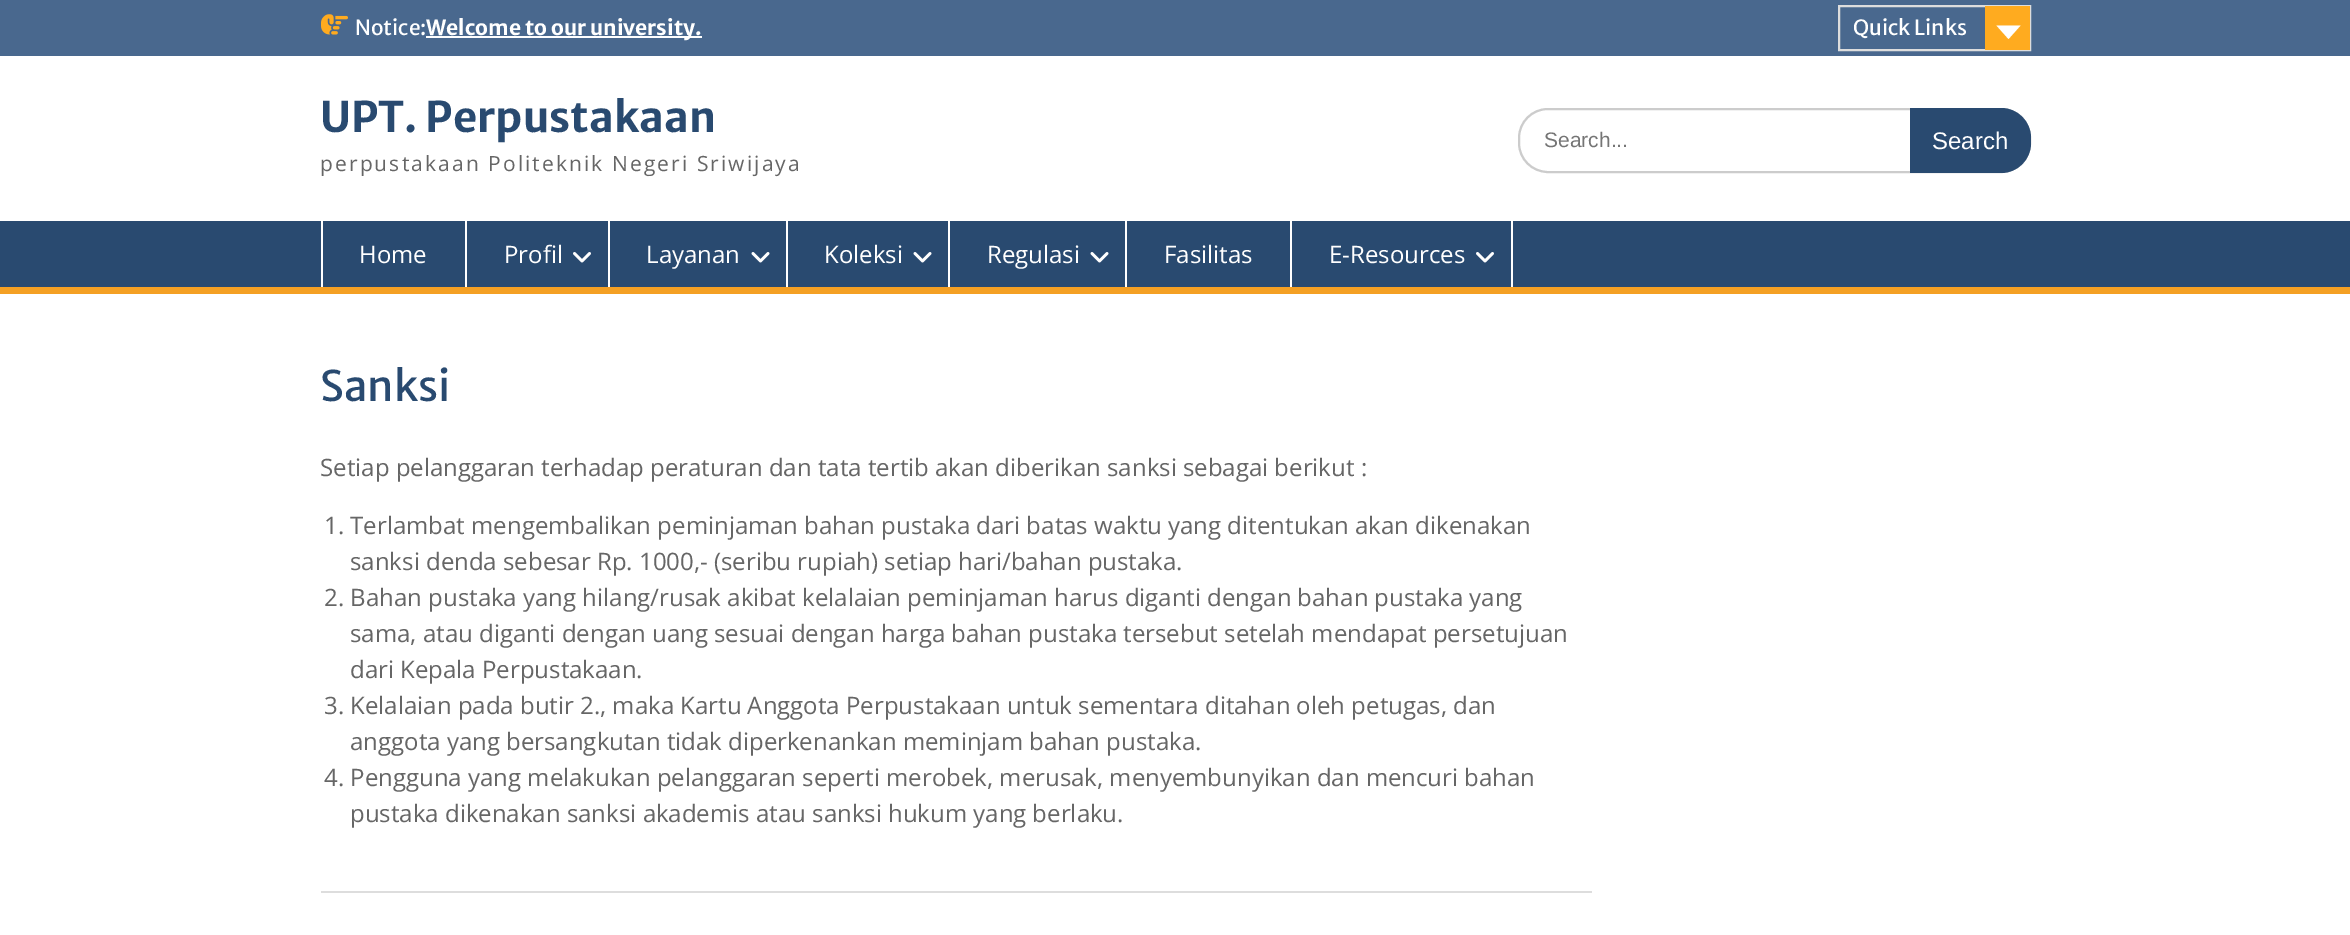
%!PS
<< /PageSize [2350 935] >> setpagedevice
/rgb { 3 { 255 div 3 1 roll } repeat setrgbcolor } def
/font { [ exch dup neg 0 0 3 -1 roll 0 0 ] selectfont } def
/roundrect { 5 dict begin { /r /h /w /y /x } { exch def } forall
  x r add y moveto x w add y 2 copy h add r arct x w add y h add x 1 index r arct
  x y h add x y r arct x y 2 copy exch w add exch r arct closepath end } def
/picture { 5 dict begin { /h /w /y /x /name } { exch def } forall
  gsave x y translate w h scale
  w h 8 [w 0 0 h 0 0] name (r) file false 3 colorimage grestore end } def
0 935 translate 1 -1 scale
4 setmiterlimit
255 255 255 rgb
0 0 2350 935 rectfill
73 104 142 rgb
0 0 2350 56 rectfill
(img/1.rgb) 321 14 27 21 picture
255 255 255 rgb
426 36 276 2 rectfill
221 221 221 rgb
2 setlinewidth
1839 6 191 44 rectstroke
255 171 31 rgb
1985 6 45 44 rectfill
255 255 255 rgb
1996.5 25.5 moveto 2020.5 25.5 lineto 2008.5 39 lineto closepath fill
204 204 204 rgb
1519 109 511 63 29 roundrect stroke
41 74 112 rgb
1910 108 moveto 2001 108 lineto 2017.5 108 2031 121.5 2031 138 curveto 2031 143 lineto 2031 159.5 2017.5 173 2001 173 curveto 1910 173 lineto closepath fill
[
  [0 221 2350 66 41 74 112]
  [0 287 2350 7 244 160 36]
  [465 221 2 66 255 255 255]
  [321 221 2 66 255 255 255]
  [608 221 2 66 255 255 255]
] { aload pop rgb rectfill } forall
(img/2.rgb) 573 252 18 11 picture
786 221 2 66 rectfill
(img/3.rgb) 751 252 19 11 picture
948 221 2 66 rectfill
(img/3.rgb) 913 252 19 11 picture
1125 221 2 66 rectfill
(img/3.rgb) 1090 252 19 11 picture
1290 221 2 66 rectfill
1511 221 2 66 rectfill
(img/2.rgb) 1476 252 18 11 picture
221 221 221 rgb
321 891 1271 2 rectfill
/MerriweatherSans-Regular 21 font
255 255 255 rgb
355 35 moveto (Notice:) show
/MerriweatherSans-Bold 21 font
426 35 moveto (Welcome to our university.) show
/MerriweatherSans-Regular 21 font
1853 35 moveto (Quick Links) show
/MerriweatherSans-Bold 42 font
41 74 112 rgb
320 132 moveto (UPT. Perpustakaan) show
/OpenSans-Regular 21 font
102 102 102 rgb
320 171 moveto 2.1 0 (perpustakaan Politeknik Negeri Sriwijaya) ashow
/LiberationSans-Regular 21 font
117 117 117 rgb
1544 147 moveto (Search...) show
/LiberationSans-Regular 24 font
255 255 255 rgb
1932 149 moveto (Search) show
/OpenSans-Regular 24 font
[
  [(Home) 359 263]
  [(Profil) 504 263]
  [(Layanan) 646 263]
  [(Koleksi) 824 263]
  [(Regulasi) 987 263]
  [(Fasilitas) 1164 263]
  [(E-Resources) 1329 263]
] { aload pop moveto show } forall
/MerriweatherSans-Regular 42 font
41 74 112 rgb
320 401 moveto (Sanksi) show
/OpenSans-Regular 24 font
102 102 102 rgb
[
  [(Setiap pelanggaran terhadap peraturan dan tata tertib akan diberikan sanksi sebagai berikut :) 320 476]
  [(1. Terlambat mengembalikan peminjaman bahan pustaka dari batas waktu yang ditentukan akan dikenakan) 324 534]
  [(sanksi denda sebesar Rp. 1000,- \(seribu rupiah\) setiap hari/bahan pustaka.) 350 570]
  [(2. Bahan pustaka yang hilang/rusak akibat kelalaian peminjaman harus diganti dengan bahan pustaka yang) 324 606]
  [(sama, atau diganti dengan uang sesuai dengan harga bahan pustaka tersebut setelah mendapat persetujuan) 350 642]
  [(dari Kepala Perpustakaan.) 350 678]
  [(3. Kelalaian pada butir 2., maka Kartu Anggota Perpustakaan untuk sementara ditahan oleh petugas, dan) 324 714]
  [(anggota yang bersangkutan tidak diperkenankan meminjam bahan pustaka.) 350 750]
  [(4. Pengguna yang melakukan pelanggaran seperti merobek, merusak, menyembunyikan dan mencuri bahan) 324 786]
  [(pustaka dikenakan sanksi akademis atau sanksi hukum yang berlaku.) 350 822]
] { aload pop moveto show } forall
showpage
